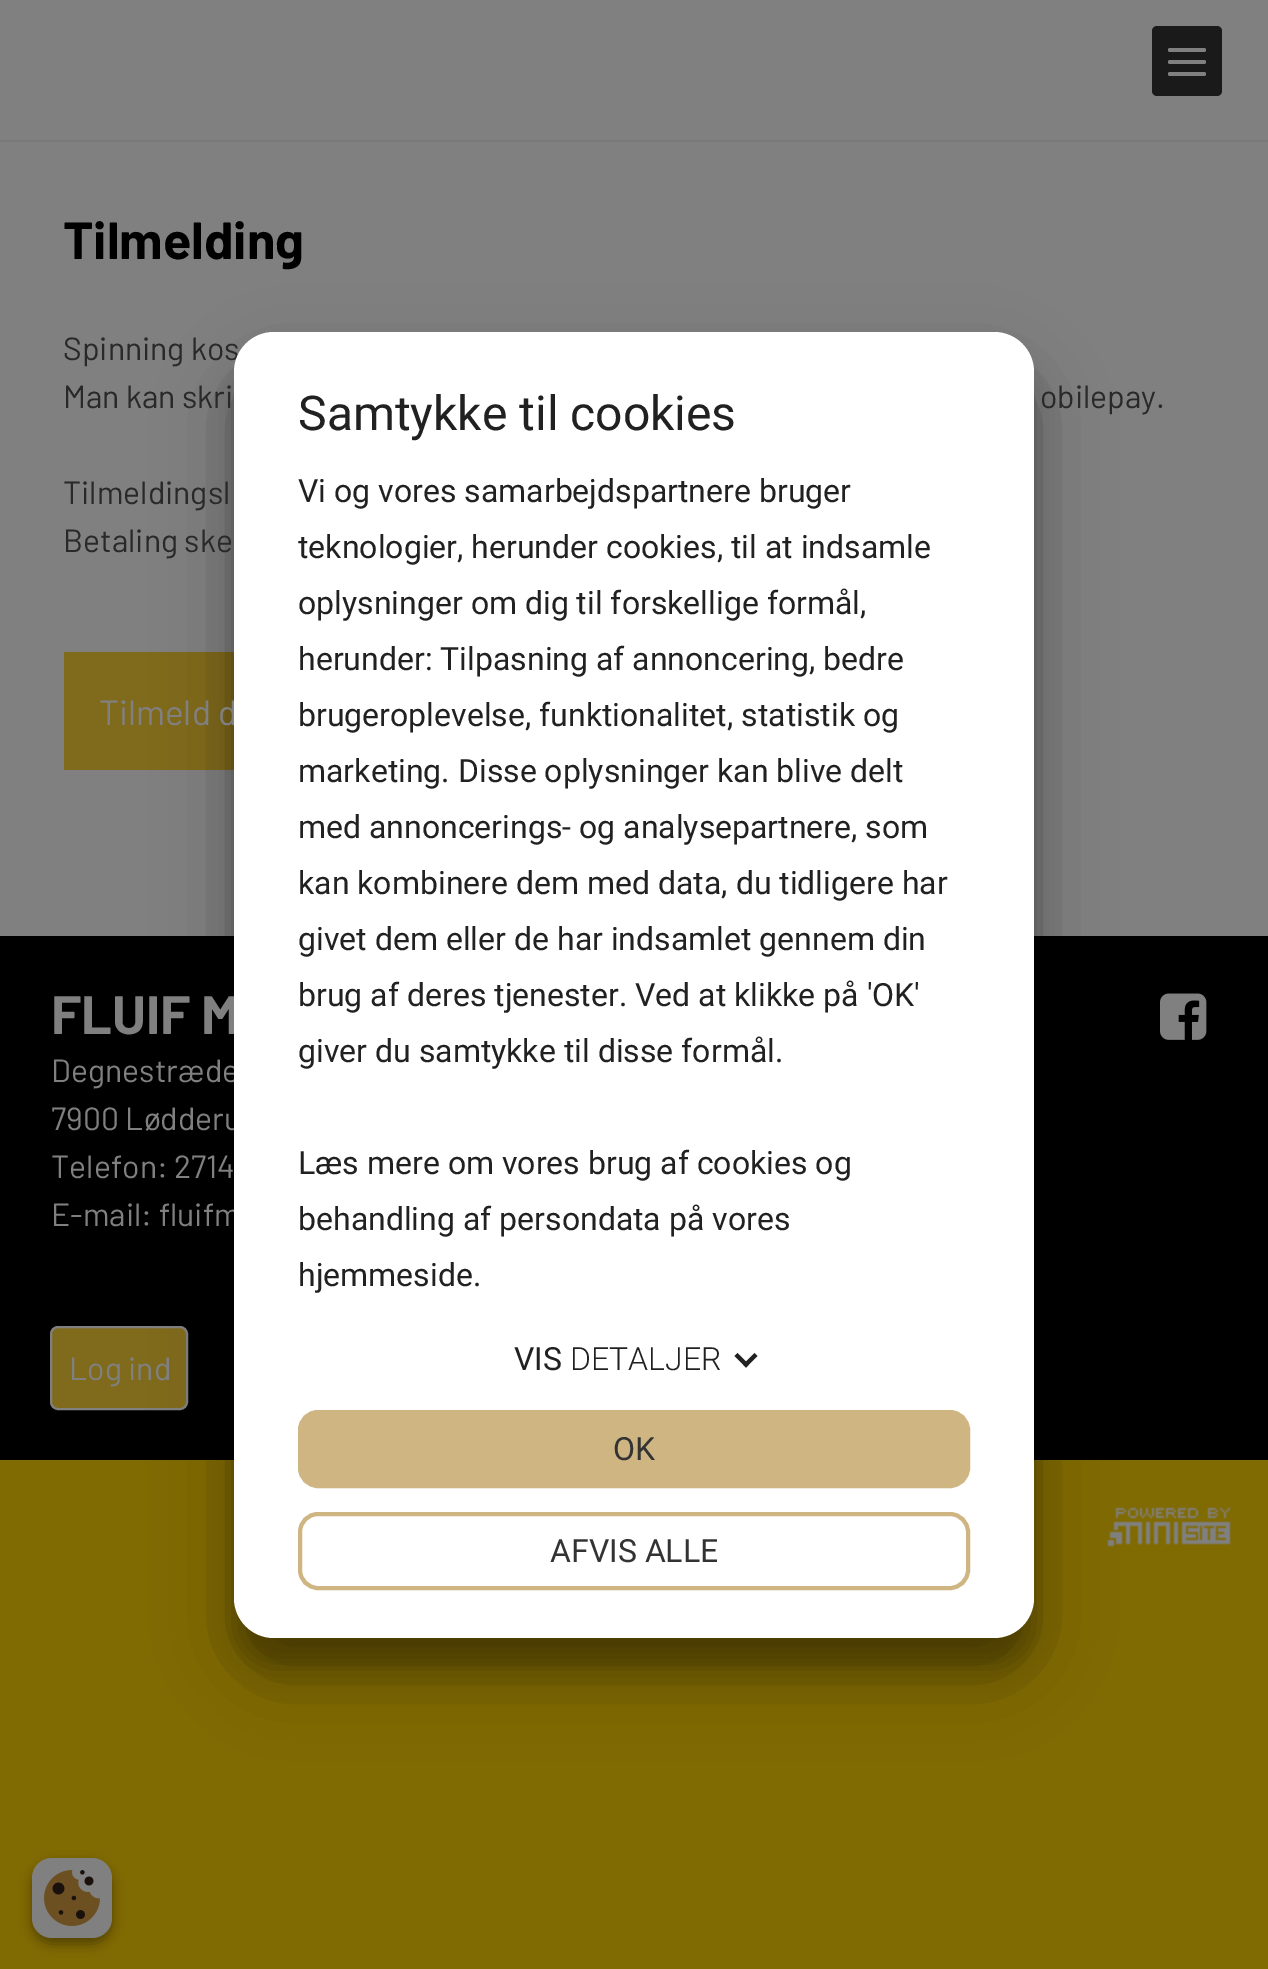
%!PS
<< /PageSize [1268 1969] /PageUsesTransparency true >> setpagedevice
/rgb { 3 { 255 div 3 1 roll } repeat setrgbcolor } def
/font { [ exch dup neg 0 0 3 -1 roll 0 0 ] selectfont } def
/alpha { dup .setfillconstantalpha .setstrokeconstantalpha } def
/roundrect { 5 dict begin { /r /h /w /y /x } { exch def } forall
  x r add y moveto x w add y 2 copy h add r arct x w add y h add x 1 index r arct
  x y h add x y r arct x y 2 copy exch w add exch r arct closepath end } def
/shadow { 12 dict begin { /a /b /q /h /w /y /x } { exch def } forall gsave /was 0 def
  9 -2 -9 { dup b mul 4 div /e exch def 1 sub .425 mul 2.718 exch exp 1 add a .99 .min exch div /now exch def
    1 1 now sub 1 was sub div sub alpha /was now def
    w h .min e 2 mul add 0 gt { x e sub y e sub w e 2 mul add h e 2 mul add
      q e add b .6 mul add w h .min 2 div e add .min 0 .max roundrect fill } if } for grestore end } def
/picture { 5 dict begin { /h /w /y /x /name } { exch def } forall
  gsave x y translate w h scale
  w h 8 [w 0 0 h 0 0] name (r) file false 3 colorimage grestore end } def
0 .pushpdf14devicefilter
0 1969 translate 1 -1 scale
4 setmiterlimit
128 106 2 rgb
0 0 1268 1969 rectfill
128 128 128 rgb
0 0 1268 936 rectfill
26 26 26 rgb
1152 26 70 70 5 roundrect fill
128 128 128 rgb
1168 48 38 4 2 roundrect fill
1168 60 38 4 2 roundrect fill
1168 72 38 4 2 roundrect fill
[
  [0 140 1268 2 121 121 121]
  [64 652 170 118 128 106 27]
  [0 936 1268 524 0 0 0]
] { aload pop rgb rectfill } forall
128 106 27 rgb
51 1327 136 82 7 roundrect gsave fill grestore
128 128 128 rgb
2 setlinewidth
stroke
(img/1.rgb) 1160 993 47 47 picture
(img/2.rgb) 1107 1507 124 40 picture
0 0 0 rgb
234 362 800 1306 40 12 0.22 shadow
234 370 800 1306 40 38 0.3 shadow
32 1864 80 80 20 6 0.23 shadow
32 1864 80 80 20 6 0.16 shadow
128 128 128 rgb
32 1858 80 80 20 roundrect fill
(img/3.rgb) 44 1870 56 56 picture
/Barlow-Bold 52 font
0 0 0 rgb
63 259 moveto (Tilmelding) show
/Barlow-Regular 32 font
41 41 41 rgb
[
  [(Spinning kos) 63 360]
  [(Man kan skri) 63 408]
  [(obilepay.) 1040 408]
  [(Tilmeldingsl) 63 504]
  [(Betaling ske) 63 552]
] { aload pop moveto show } forall
/Barlow-Regular 35 font
128 128 128 rgb
99 725 moveto (Tilmeld d) show
/Barlow-Bold 54 font
51 1034 moveto (FLUIF M) show
/Barlow-Regular 32 font
[
  [(Degnestræde) 51 1082]
  [(7900 Lødderu) 51 1130]
  [(Telefon: 2714) 51 1178]
  [(E-mail: fluifm) 51 1226]
  [(Log ind) 69 1380]
] { aload pop moveto show } forall
255 255 255 rgb
234 332 800 1306 40 roundrect fill
/Roboto-Regular 48 font
33 33 33 rgb
298 430 moveto (Samtykke til cookies) show
/Roboto-Regular 32 font
[
  [(Vi og vores samarbejdspartnere bruger) 298 502]
  [(teknologier, herunder cookies, til at indsamle) 298 558]
  [(oplysninger om dig til forskellige formål,) 298 614]
  [(herunder: Tilpasning af annoncering, bedre) 298 670]
  [(brugeroplevelse, funktionalitet, statistik og) 298 726]
  [(marketing. Disse oplysninger kan blive delt) 298 782]
  [(med annoncerings- og analysepartnere, som) 298 838]
  [(kan kombinere dem med data, du tidligere har) 298 894]
  [(givet dem eller de har indsamlet gennem din) 298 950]
  [(brug af deres tjenester. Ved at klikke på 'OK') 298 1006]
  [(giver du samtykke til disse formål.) 298 1062]
  [(Læs mere om vores brug af cookies og) 298 1174]
  [(behandling af persondata på vores) 298 1230]
  [(hjemmeside.) 298 1286]
  [(VIS) 514 1370]
] { aload pop moveto show } forall
/Roboto-Light 32 font
570 1370 moveto (DETALJER) show
754.5 1353 moveto 757.5 1356 lineto 746 1367.5 lineto 743 1364.5 lineto closepath fill
737.5 1353 moveto 749 1364.5 lineto 746 1367.5 lineto 734.5 1356 lineto closepath fill
206 181 130 rgb
300 1412 668 74 18 roundrect gsave fill grestore
4 setlinewidth
stroke
/Roboto-Regular 32 font
51 51 51 rgb
613 1460 moveto (OK) show
206 181 130 rgb
300 1514 668 74 18 roundrect stroke
51 51 51 rgb
550 1562 moveto (AFVIS ALLE) show
.poppdf14devicefilter showpage
